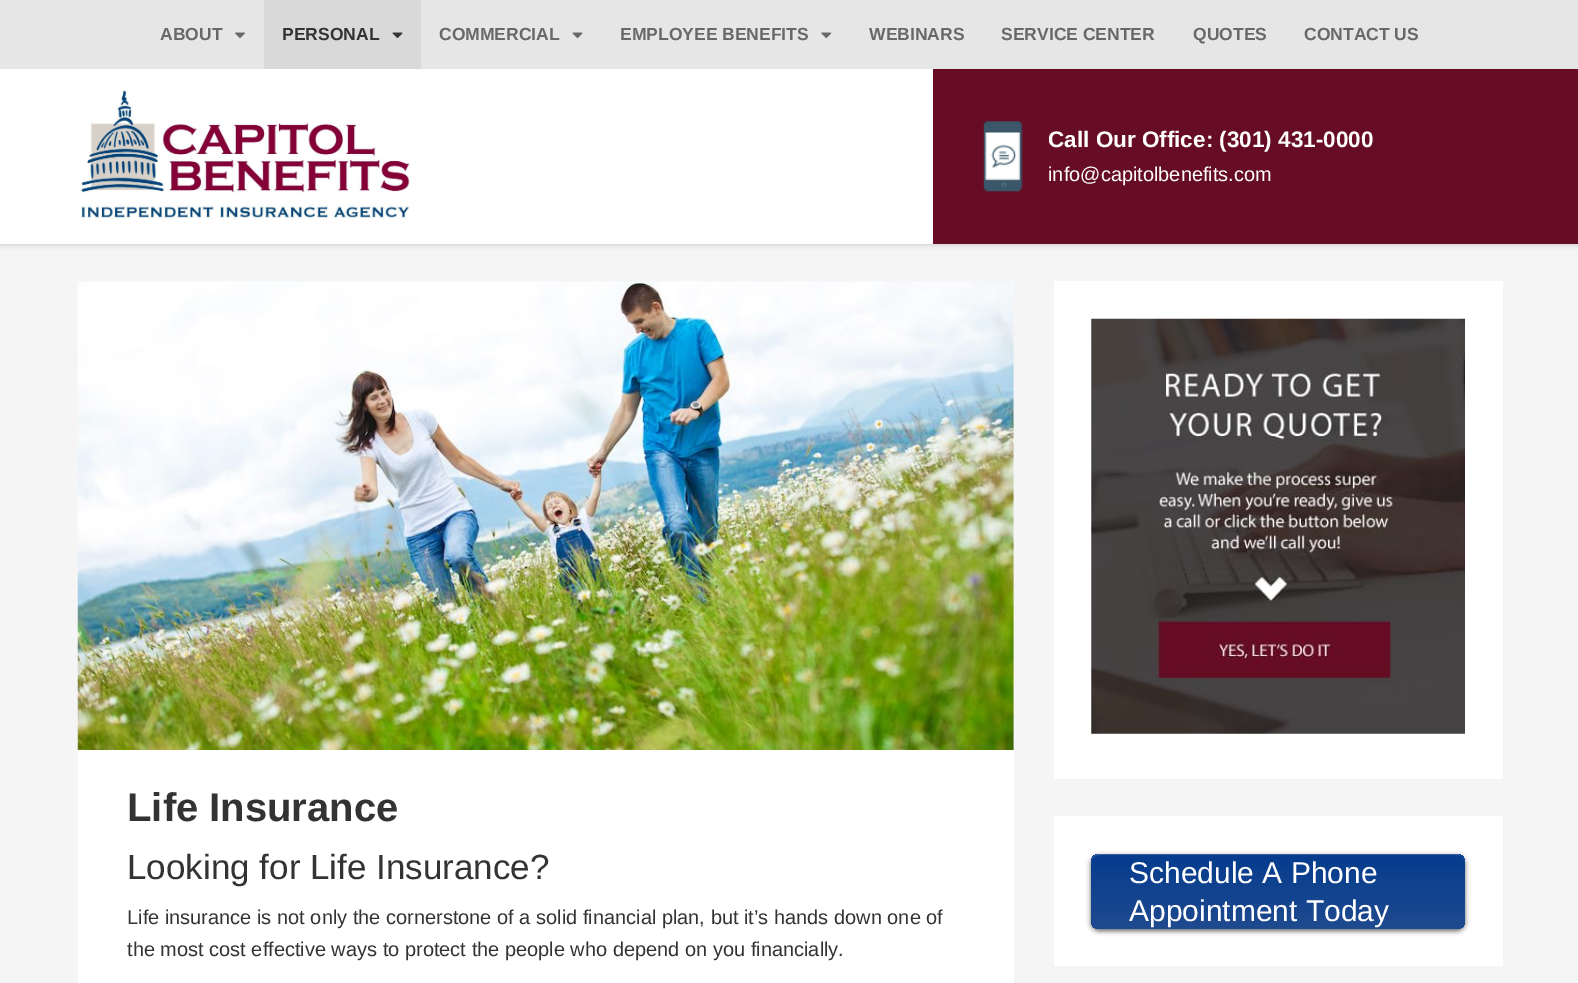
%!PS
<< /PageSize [1578 983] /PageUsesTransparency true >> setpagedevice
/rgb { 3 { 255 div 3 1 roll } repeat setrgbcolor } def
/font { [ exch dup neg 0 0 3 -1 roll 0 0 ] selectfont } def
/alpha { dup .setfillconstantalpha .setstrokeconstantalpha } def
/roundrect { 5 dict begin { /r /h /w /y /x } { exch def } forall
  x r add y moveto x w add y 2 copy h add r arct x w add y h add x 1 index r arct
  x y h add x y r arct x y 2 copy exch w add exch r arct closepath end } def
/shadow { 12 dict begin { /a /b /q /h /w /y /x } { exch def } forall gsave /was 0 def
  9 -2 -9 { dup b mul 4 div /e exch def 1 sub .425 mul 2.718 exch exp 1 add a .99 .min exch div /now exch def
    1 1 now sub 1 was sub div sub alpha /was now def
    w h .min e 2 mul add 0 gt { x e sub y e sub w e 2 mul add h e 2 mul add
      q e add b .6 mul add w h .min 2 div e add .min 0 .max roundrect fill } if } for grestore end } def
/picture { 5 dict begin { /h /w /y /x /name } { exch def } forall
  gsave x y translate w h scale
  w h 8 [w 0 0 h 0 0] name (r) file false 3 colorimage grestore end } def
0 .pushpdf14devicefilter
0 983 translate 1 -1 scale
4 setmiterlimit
245 245 245 rgb
0 0 1578 983 rectfill
28 30 31 rgb
0 69 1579 175 0 3 0.25 shadow
230 230 230 rgb
0 0 1578 69 rectfill
(img/1.rgb) 235 32 10 6 picture
217 217 217 rgb
264 0 157 69 rectfill
(img/2.rgb) 392 32 11 7 picture
(img/3.rgb) 572 32 11 7 picture
(img/4.rgb) 821 32 11 7 picture
255 255 255 rgb
0 69 933 175 rectfill
102 12 36 rgb
933 69 645 175 rectfill
(img/5.rgb) 81 90 329 129 picture
(img/6.rgb) 983 121 40 71 picture
255 255 255 rgb
78 750 936 233 rectfill
(img/7.rgb) 77 281 937 469 picture
1054 281 449 498 rectfill
(img/8.rgb) 1091 318 374 416 picture
1054 816 449 150 rectfill
0 0 0 rgb
1091 856 374 75 8 2.5 0.6 shadow
gsave 1091 854 374 75 8 roundrect clip newpath
<< /ShadingType 2 /ColorSpace /DeviceRGB /Coords [1278 854 1278 929] /Extend [true true] /Function << /FunctionType 2 /Domain [0 1] /C0 [0.02 0.235 0.557] /C1 [0.122 0.29 0.557] /N 1 >> >> shfill grestore
0.2 alpha
255 255 255 rgb
1099 855 moveto 1458 855 lineto 1462 855 1465 858 1465 862 curveto 1465 858 1461 854 1457 854 curveto 1099 854 lineto 1095 854 1091 858 1091 862 curveto 1091 858 1095 855 1099 855 curveto closepath fill
/LiberationSans-Bold 17.5 font
1 alpha
103 104 105 rgb
160 40 moveto (ABOUT) show
51 51 51 rgb
282 40 moveto (PERSONAL) show
103 104 105 rgb
[
  [(COMMERCIAL) 439 40]
  [(EMPLOYEE BENEFITS) 620 40]
  [(WEBINARS) 869 40]
  [(SERVICE CENTER) 1001 40]
  [(QUOTES) 1193 40]
  [(CONTACT US) 1304 40]
] { aload pop moveto show } forall
/LiberationSans-Bold 22.5 font
255 255 255 rgb
1048 147 moveto (Call Our Office: \(301\) 431-0000) show
/LiberationSans-Regular 20 font
1048 181 moveto (info@capitolbenefits.com) show
/LiberationSans-Bold 40 font
51 51 51 rgb
127 821 moveto (Life Insurance) show
/LiberationSans-Regular 35 font
127 879 moveto (Looking for Life Insurance?) show
/LiberationSans-Regular 20 font
127 924 moveto (Life insurance is not only the cornerstone of a solid financial plan, but it’s hands down one of) show
127 956 moveto (the most cost effective ways to protect the people who depend on you financially.) show
/LiberationSans-Regular 30 font
255 255 255 rgb
1129 883 moveto (Schedule A Phone) show
1129 921 moveto (Appointment Today) show
.poppdf14devicefilter showpage
